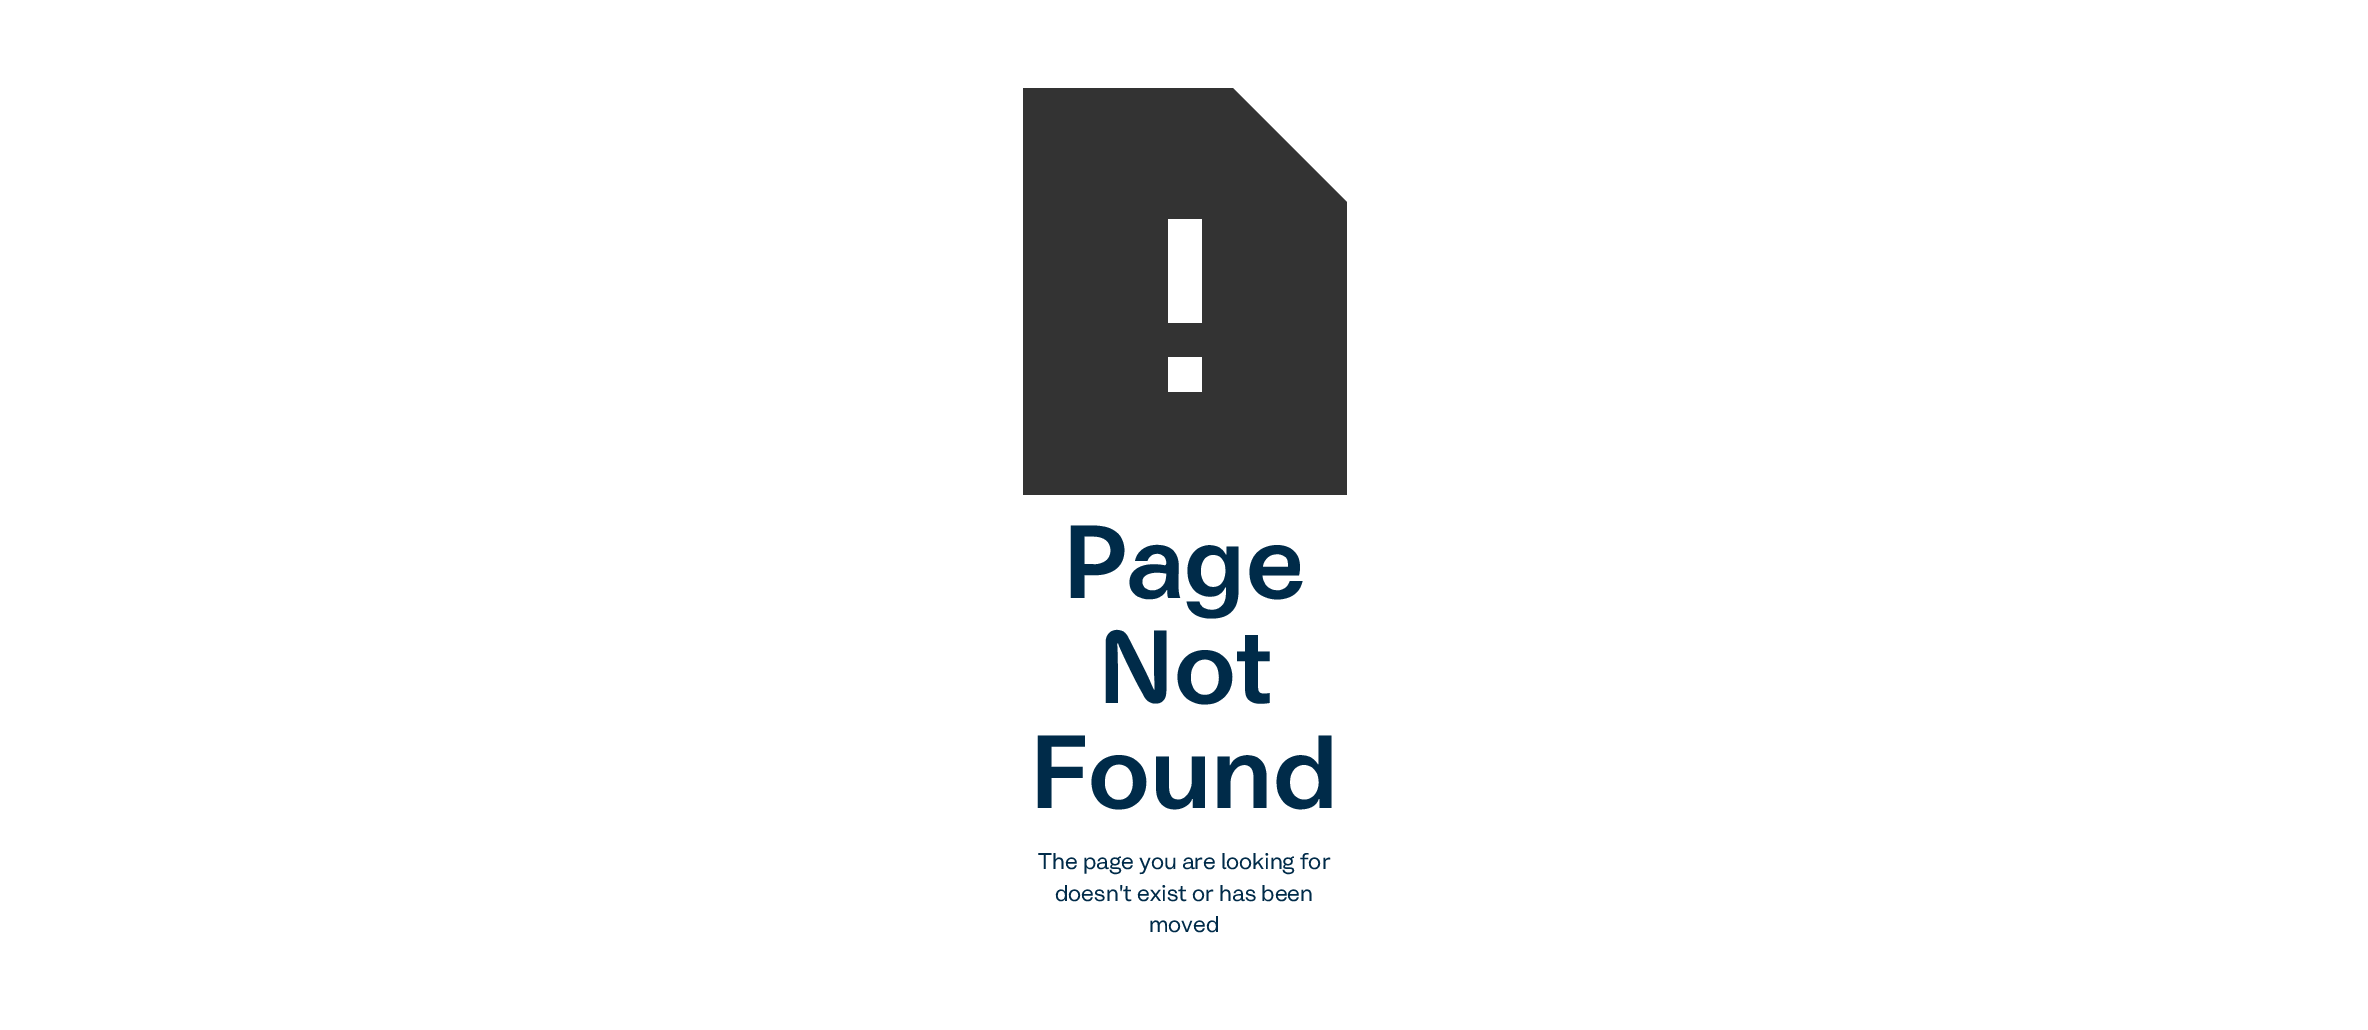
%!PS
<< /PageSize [2368 1030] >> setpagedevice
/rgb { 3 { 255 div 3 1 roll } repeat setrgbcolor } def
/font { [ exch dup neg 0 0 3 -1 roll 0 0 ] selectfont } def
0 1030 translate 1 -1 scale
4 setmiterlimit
255 255 255 rgb
0 0 2368 1030 rectfill
51 51 51 rgb
1023 88 moveto 1233 88 lineto 1347 202 lineto 1347 495 lineto 1023 495 lineto closepath 1168 219 moveto 1202 219 lineto 1202 323 lineto 1168 323 lineto closepath 1168 357 moveto 1202 357 lineto 1202 392 lineto 1168 392 lineto closepath eofill
/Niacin-SemiBold 100 font
0 43 73 rgb
[
  [(Page) 1063 598]
  [(Not) 1098 703]
  [(Found) 1030 808]
] { aload pop moveto show } forall
/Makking-Regular 22.5 font
[
  [(The page you are looking for) 1038 869]
  [(doesn't exist or has been) 1055 901]
  [(moved) 1149 932]
] { aload pop moveto show } forall
showpage
